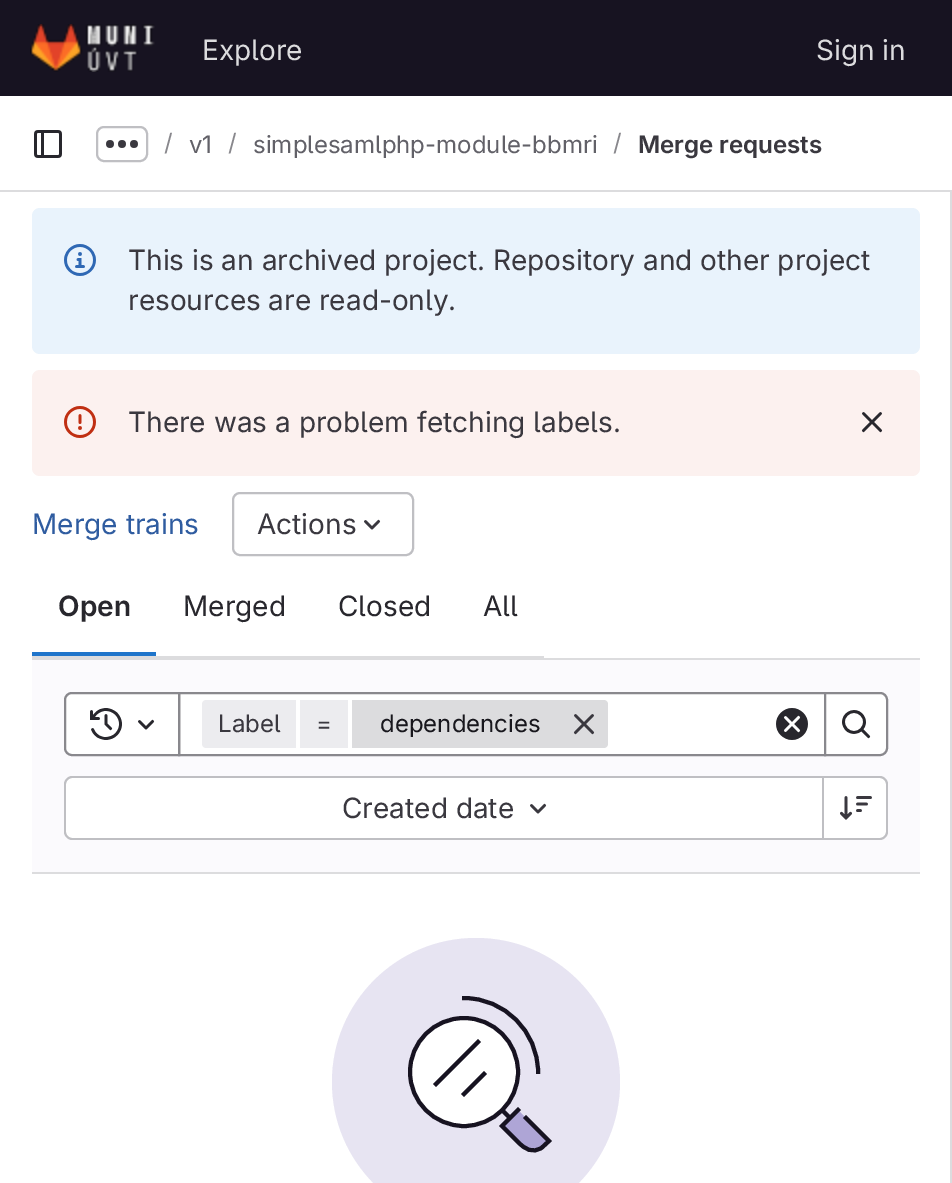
%!PS
<< /PageSize [952 1183] >> setpagedevice
/rgb { 3 { 255 div 3 1 roll } repeat setrgbcolor } def
/font { [ exch dup neg 0 0 3 -1 roll 0 0 ] selectfont } def
/circle { newpath 0 360 arc closepath } def
/roundrect { 5 dict begin { /r /h /w /y /x } { exch def } forall
  x r add y moveto x w add y 2 copy h add r arct x w add y h add x 1 index r arct
  x y h add x y r arct x y 2 copy exch w add exch r arct closepath end } def
/picture { 5 dict begin { /h /w /y /x /name } { exch def } forall
  gsave x y translate w h scale
  w h 8 [w 0 0 h 0 0] name (r) file false 3 colorimage grestore end } def
0 1183 translate 1 -1 scale
4 setmiterlimit
255 255 255 rgb
0 0 952 1183 rectfill
23 19 33 rgb
0 0 952 96 rectfill
(img/1.rgb) 30 24 125 48 picture
220 220 222 rgb
0 190 952 2 rectfill
(img/2.rgb) 34 130 28 28 picture
191 191 195 rgb
2 setlinewidth
97 127 50 34 7 roundrect stroke
(img/3.rgb) 106 140 32 8 picture
233 243 252 rgb
32 208 888 146 8 roundrect fill
(img/4.rgb) 64 244 32 32 picture
252 241 239 rgb
32 370 888 106 8 roundrect fill
(img/5.rgb) 64 406 32 32 picture
(img/6.rgb) 861 412 22 21 picture
220 220 222 rgb
32 658 888 2 rectfill
191 191 195 rgb
233 493 180 62 7 roundrect stroke
(img/7.rgb) 364 519 17 11 picture
[
  [32 656 512 2 220 220 222]
  [32 652 124 4 31 117 203]
  [950 192 2 991 220 220 222]
  [32 660 888 212 251 250 253]
  [32 872 888 2 220 220 222]
] { aload pop rgb rectfill } forall
255 255 255 rgb
179 693 moveto 825 693 lineto 825 755 lineto 179 755 lineto closepath gsave fill grestore
137 136 141 rgb
stroke
255 255 255 rgb
72 693 moveto 179 693 lineto 179 755 lineto 72 755 lineto 68 755 65 752 65 748 curveto 65 700 lineto 65 696 68 693 72 693 curveto closepath gsave fill grestore
137 136 141 rgb
stroke
(img/8.rgb) 90 708 32 32 picture
(img/9.rgb) 138 719 17 11 picture
236 236 239 rgb
206 700 moveto 296 700 lineto 296 748 lineto 206 748 lineto 204 748 202 746 202 744 curveto 202 704 lineto 202 702 204 700 206 700 curveto closepath fill
300 700 48 48 rectfill
220 220 222 rgb
352 700 moveto 604 700 lineto 606 700 608 702 608 704 curveto 608 744 lineto 608 746 606 748 604 748 curveto 352 748 lineto closepath fill
(img/10.rgb) 573 714 22 21 picture
(img/11.rgb) 776 708 32 32 picture
255 255 255 rgb
825 693 moveto 880 693 lineto 884 693 887 696 887 700 curveto 887 748 lineto 887 752 884 755 880 755 curveto 825 755 lineto closepath gsave fill grestore
137 136 141 rgb
stroke
(img/12.rgb) 842 710 29 29 picture
255 255 255 rgb
72 778 moveto 822 778 lineto 822 838 lineto 72 838 lineto 68.5 838 66 835.5 66 832 curveto 66 784 lineto 66 780.5 68.5 778 72 778 curveto closepath fill
191 191 195 rgb
72 776 moveto 822 776 lineto 822 840 lineto 72 840 lineto 68 840 64 836 64 832 curveto 64 784 lineto 64 780 68 776 72 776 curveto closepath 72 778 moveto 822 778 lineto 822 838 lineto 72 838 lineto 69 838 66 835 66 832 curveto 66 784 lineto 66 781 69 778 72 778 curveto closepath eofill
(img/7.rgb) 530 803 17 11 picture
255 255 255 rgb
824 778 moveto 880 778 lineto 883.5 778 886 780.5 886 784 curveto 886 832 lineto 886 835.5 883.5 838 880 838 curveto 824 838 lineto closepath fill
191 191 195 rgb
824 776 moveto 880 776 lineto 884 776 888 780 888 784 curveto 888 832 lineto 888 836 884 840 880 840 curveto 824 840 lineto closepath 824 778 moveto 880 778 lineto 883 778 886 781 886 784 curveto 886 832 lineto 886 835 883 838 880 838 curveto 824 838 lineto closepath eofill
822 776 2 64 rectfill
(img/13.rgb) 840 796 32 24 picture
231 228 242 rgb
476 1082 144 circle fill
174 165 214 rgb
518 1110 moveto 502 1126 lineto 518 1142 lineto 525 1149 533 1154 542 1148 curveto 549 1141 lineto closepath fill
23 19 33 rgb
4 setlinewidth
2 setlinecap
518 1110 moveto 502 1126 lineto 518.5 1142.5 lineto 525 1149 532.5 1154 542 1147.5 curveto 549 1141 lineto 526 1118 lineto 502 1110 moveto 508 1116 lineto stroke
255 255 255 rgb
464 1072 54 circle gsave fill grestore
23 19 33 rgb
0 setlinecap
stroke
2 setlinecap
464 1094 moveto 484 1074 lineto 436 1084 moveto 478 1042 lineto 538 1072 moveto 538 1031.5 504.5 998 464 998 curveto stroke
/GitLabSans-Regular 28 font
220 220 222 rgb
202 60 moveto (Explore) show
816 60 moveto (Sign in) show
/GitLabSans-Regular 24 font
137 136 141 rgb
164 151 moveto (/) show
98 97 104 rgb
189 153 moveto (v1) show
137 136 141 rgb
228 151 moveto (/) show
98 97 104 rgb
253 153 moveto (simplesamlphp-module-bbmri) show
137 136 141 rgb
613 151 moveto (/) show
/GitLabSans-SemiBold 24 font
58 56 63 rgb
638 153 moveto (Merge requests) show
/GitLabSans-Regular 28 font
[
  [(This is an archived project. Repository and other project) 128 270]
  [(resources are read-only.) 128 310]
  [(There was a problem fetching labels.) 128 432]
] { aload pop moveto show } forall
47 92 160 rgb
32 534 moveto (Merge trains) show
58 56 63 rgb
257 534 moveto (Actions) show
/GitLabSans-SemiBold 28 font
40 39 45 rgb
58 616 moveto (Open) show
/GitLabSans-Regular 28 font
[
  [(Merged) 183 616]
  [(Closed) 338 616]
  [(All) 483 616]
] { aload pop moveto show } forall
/GitLabSans-Regular 24 font
58 56 63 rgb
218 732 moveto (Label) show
316 732 moveto (=) show
24 23 29 rgb
380 732 moveto (dependencies) show
/GitLabSans-Regular 28 font
58 56 63 rgb
342 818 moveto (Created date) show
showpage
